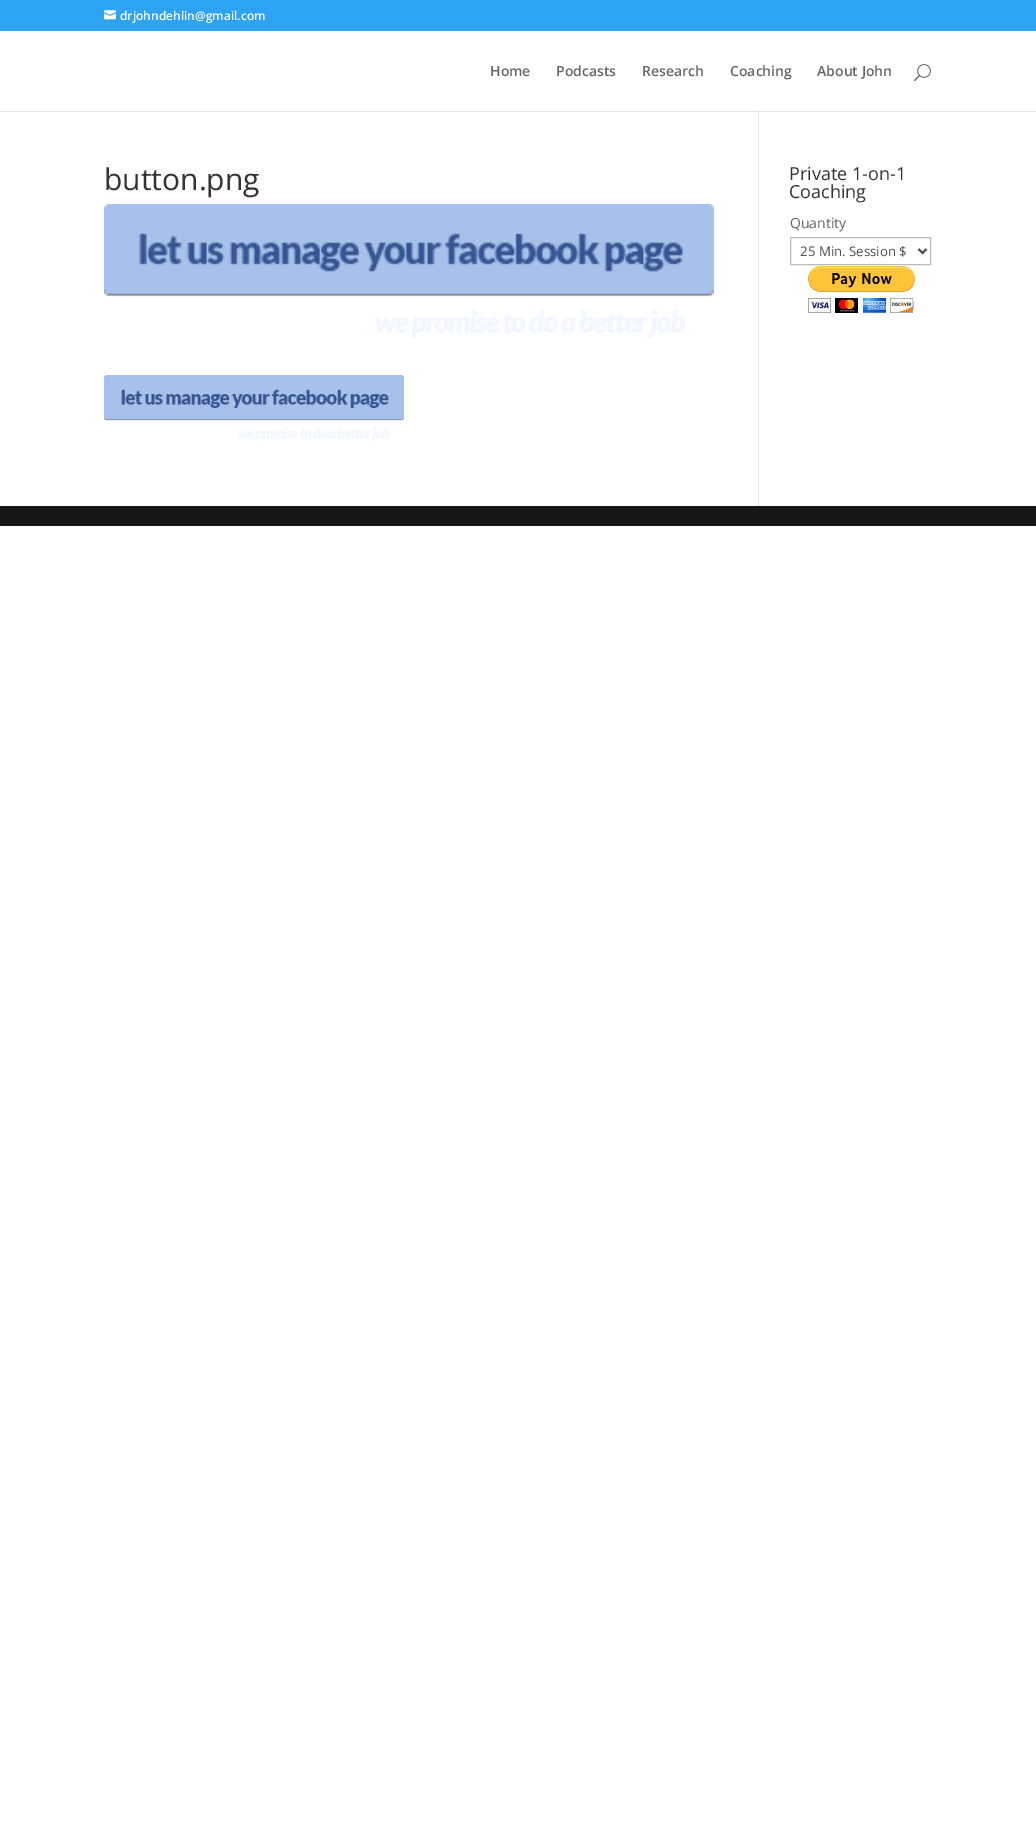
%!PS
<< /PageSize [1036 1828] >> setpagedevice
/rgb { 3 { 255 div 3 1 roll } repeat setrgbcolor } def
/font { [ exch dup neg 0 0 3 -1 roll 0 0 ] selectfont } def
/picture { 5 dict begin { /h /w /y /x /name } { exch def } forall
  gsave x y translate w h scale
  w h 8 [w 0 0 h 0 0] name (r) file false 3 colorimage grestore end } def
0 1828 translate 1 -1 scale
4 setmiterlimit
255 255 255 rgb
0 0 1036 1828 rectfill
230 230 230 rgb
0 111 1036 1 rectfill
46 163 242 rgb
0 0 1036 31 rectfill
(img/1.rgb) 104 10 12 10 picture
226 226 226 rgb
758 106 1 400 rectfill
255 255 255 rgb
758 106 1 5 rectfill
(img/2.rgb) 914 64 17 18 picture
203 203 203 rgb
758 111 1 1 rectfill
(img/3.rgb) 104 204 610 134 picture
(img/4.rgb) 104 375 300 66 picture
187 187 187 rgb
790.5 237.5 140 27 rectstroke
78 78 78 rgb
2 setlinewidth
918.5 249 moveto 922.5 253 lineto 926.5 249 lineto stroke
(img/5.rgb) 808 266 107 47 picture
23 23 23 rgb
0 506 1036 20 rectfill
/OpenSans-SemiBold 12 font
255 255 255 rgb
120 20 moveto (drjohndehlin@gmail.com) show
/OpenSans-SemiBold 14 font
102 102 102 rgb
[
  [(Home) 490 76]
  [(Podcasts) 556 76]
  [(Research) 642 76]
  [(Coaching) 730 76]
  [(About John) 817 76]
] { aload pop moveto show } forall
/OpenSans-Regular 30 font
51 51 51 rgb
104 190 moveto (button.png) show
/OpenSans-Regular 18 font
789 180 moveto (Private 1-on-1) show
789 198 moveto (Coaching) show
/OpenSans-Regular 14 font
102 102 102 rgb
790 228 moveto (Quantity) show
/OpenSans-Regular 13.25 font
78 78 78 rgb
800 256 moveto (25 Min. Session $) show
showpage
